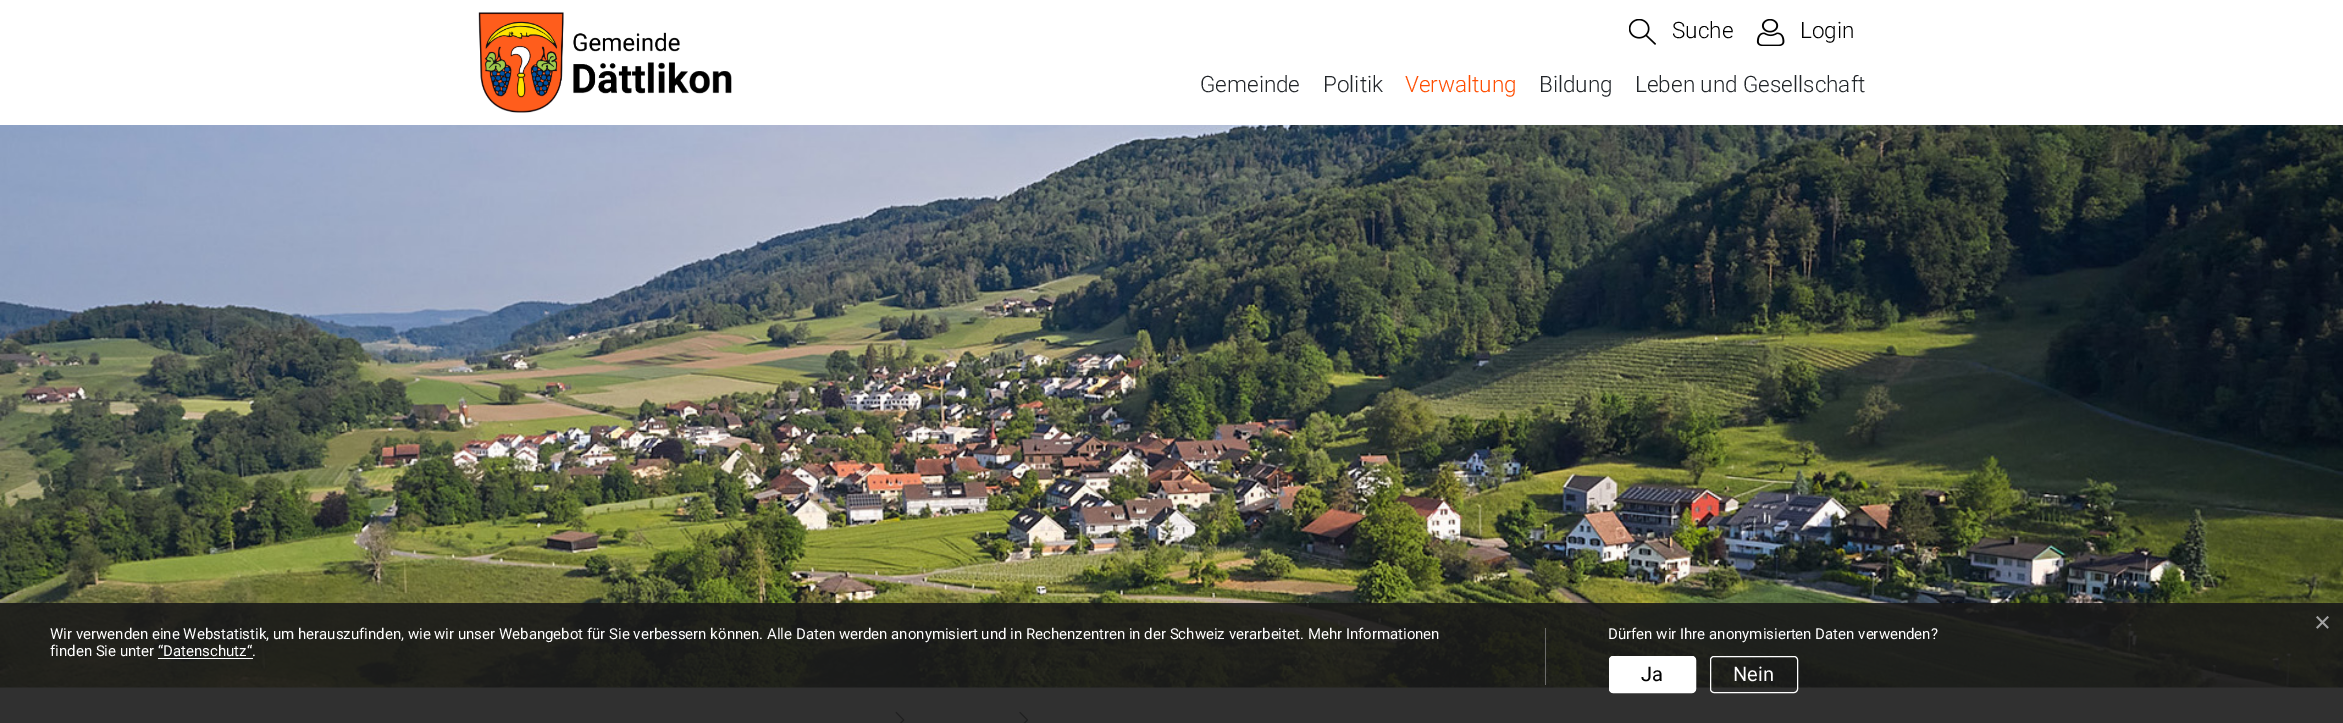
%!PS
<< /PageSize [2343 723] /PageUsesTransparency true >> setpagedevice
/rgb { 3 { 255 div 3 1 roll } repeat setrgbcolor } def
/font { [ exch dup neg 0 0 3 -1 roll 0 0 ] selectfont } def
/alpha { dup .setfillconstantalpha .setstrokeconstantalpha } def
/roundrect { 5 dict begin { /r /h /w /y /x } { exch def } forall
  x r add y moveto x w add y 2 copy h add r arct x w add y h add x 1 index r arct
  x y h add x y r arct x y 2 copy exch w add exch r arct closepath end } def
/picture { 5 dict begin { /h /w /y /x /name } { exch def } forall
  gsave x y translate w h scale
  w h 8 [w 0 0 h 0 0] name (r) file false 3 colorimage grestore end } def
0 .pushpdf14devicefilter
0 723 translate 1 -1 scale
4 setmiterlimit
255 255 255 rgb
0 0 2343 723 rectfill
(img/1.rgb) 478 12 254 101 picture
(img/2.rgb) 1629 19 27 26 picture
(img/3.rgb) 1756 19 29 27 picture
(img/4.rgb) 0 125 2343 563 picture
(img/5.rgb) 895 711 10 12 picture
(img/6.rgb) 1019 711 9 12 picture
0.9 alpha
[
  [0 603 2343 120 25 25 25]
] { aload pop rgb rectfill } forall
1 alpha
[
  [1545 628 1 57 109 109 109]
  [158 658 95 1 255 255 255]
] { aload pop rgb rectfill } forall
1609.5 656.5 86 36 3.5 roundrect gsave fill grestore
stroke
1710.5 656.5 87 36 3.5 roundrect stroke
/Roboto-Light 22.5 font
0 0 0 rgb
1672 38 moveto (Suche) show
1800 38 moveto (Login) show
33 37 41 rgb
1200 92 moveto (Gemeinde) show
1323 92 moveto (Politik) show
255 77 0 rgb
1405 92 moveto (Verwaltung) show
33 37 41 rgb
1539 92 moveto (Bildung) show
1635 92 moveto (Leben und Gesellschaft) show
/LiberationSans-Regular 29 font
162 162 162 rgb
2314 632 moveto (×) show
/Roboto-Regular 15 font
255 255 255 rgb
[
  [(Wir verwenden eine Webstatistik, um herauszufinden, wie wir unser Webangebot für Sie verbessern können. Alle Daten werden anonymisiert und in Rechenzentren in der Schweiz verarbeitet. Mehr Informationen) 50 639]
  [(finden Sie unter “Datenschutz“.) 50 656]
  [(Dürfen wir Ihre anonymisierten Daten verwenden?) 1608 639]
] { aload pop moveto show } forall
/Roboto-Regular 20 font
0 0 0 rgb
1641 681 moveto (Ja) show
255 255 255 rgb
1733 681 moveto (Nein) show
.poppdf14devicefilter showpage
